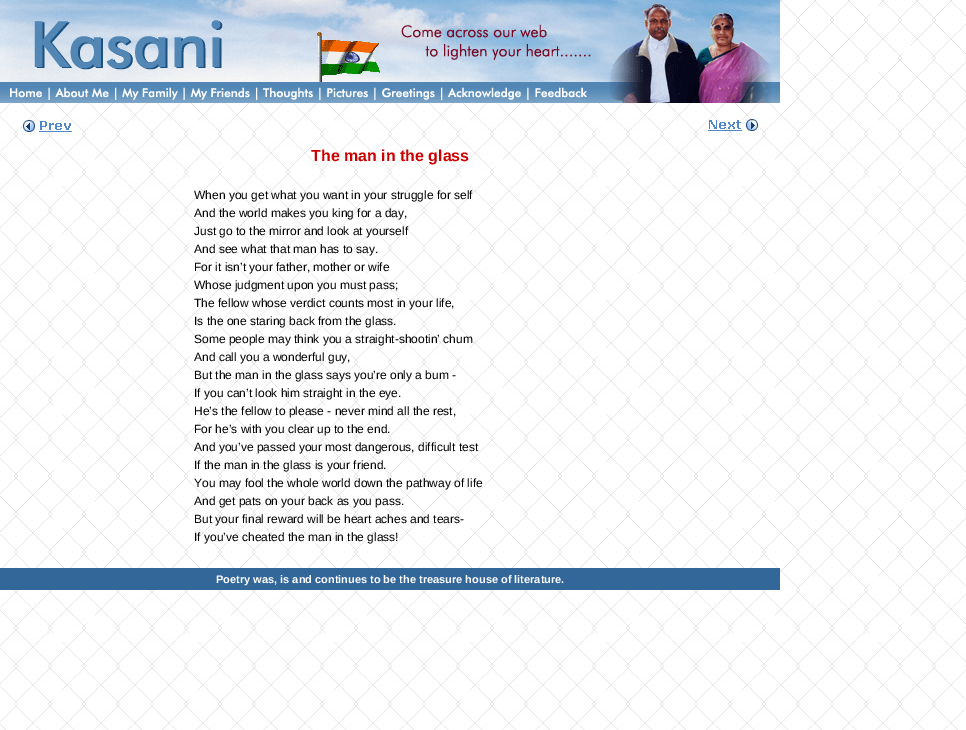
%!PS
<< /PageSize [966 730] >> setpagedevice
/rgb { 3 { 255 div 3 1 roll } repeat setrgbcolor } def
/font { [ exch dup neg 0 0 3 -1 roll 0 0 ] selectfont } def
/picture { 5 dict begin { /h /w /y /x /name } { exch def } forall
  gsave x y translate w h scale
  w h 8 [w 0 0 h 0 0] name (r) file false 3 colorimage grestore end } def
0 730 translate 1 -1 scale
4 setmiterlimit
255 255 255 rgb
0 0 966 730 rectfill
(img/1.rgb) 0 0 966 730 picture
(img/2.rgb) 0 0 75 82 picture
(img/3.rgb) 75 0 96 82 picture
(img/4.rgb) 171 0 95 82 picture
(img/5.rgb) 266 0 91 82 picture
(img/6.rgb) 357 0 95 82 picture
(img/7.rgb) 452 0 100 82 picture
(img/8.rgb) 552 0 69 82 picture
(img/9.rgb) 621 0 125 82 picture
(img/10.rgb) 746 0 34 82 picture
(img/11.rgb) 0 82 45 21 picture
(img/12.rgb) 45 82 9 21 picture
(img/13.rgb) 54 82 56 21 picture
(img/14.rgb) 110 82 9 21 picture
(img/15.rgb) 119 82 59 21 picture
(img/16.rgb) 178 82 9 21 picture
(img/17.rgb) 187 82 65 21 picture
(img/18.rgb) 252 82 9 21 picture
(img/19.rgb) 261 82 54 21 picture
(img/20.rgb) 315 82 9 21 picture
(img/21.rgb) 324 82 47 21 picture
(img/22.rgb) 371 82 9 21 picture
(img/23.rgb) 380 82 56 21 picture
(img/24.rgb) 436 82 10 21 picture
(img/25.rgb) 446 82 76 21 picture
(img/26.rgb) 522 82 9 21 picture
(img/27.rgb) 531 82 59 21 picture
(img/28.rgb) 590 82 76 21 picture
(img/29.rgb) 666 82 114 21 picture
(img/30.rgb) 317 32 63 50 picture
(img/31.rgb) 23 120 49 12 picture
(img/32.rgb) 708 119 50 12 picture
51 102 153 rgb
0 568 780 22 rectfill
/LiberationSans-Bold 16 font
204 0 0 rgb
311 161 moveto (The man in the glass) show
/LiberationSans-Regular 12 font
0 0 0 rgb
[
  [(When you get what you want in your struggle for self) 194 199]
  [(And the world makes you king for a day,) 194 217]
  [(Just go to the mirror and look at yourself) 194 235]
  [(And see what that man has to say.) 194 253]
  [(For it isn’t your father, mother or wife) 194 271]
  [(Whose judgment upon you must pass;) 194 289]
  [(The fellow whose verdict counts most in your life,) 194 307]
  [(Is the one staring back from the glass.) 194 325]
  [(Some people may think you a straight-shootin’ chum) 194 343]
  [(And call you a wonderful guy,) 194 361]
  [(But the man in the glass says you’re only a bum -) 194 379]
  [(If you can’t look him straight in the eye.) 194 397]
  [(He’s the fellow to please - never mind all the rest,) 194 415]
  [(For he’s with you clear up to the end.) 194 433]
  [(And you’ve passed your most dangerous, difficult test) 194 451]
  [(If the man in the glass is your friend.) 194 469]
  [(You may fool the whole world down the pathway of life) 194 487]
  [(And get pats on your back as you pass.) 194 505]
  [(But your final reward will be heart aches and tears-) 194 523]
  [(If you’ve cheated the man in the glass!) 194 541]
] { aload pop moveto show } forall
/LiberationSans-Bold 11 font
255 255 255 rgb
216 583 moveto (Poetry was, is and continues to be the treasure house of literature.) show
showpage
